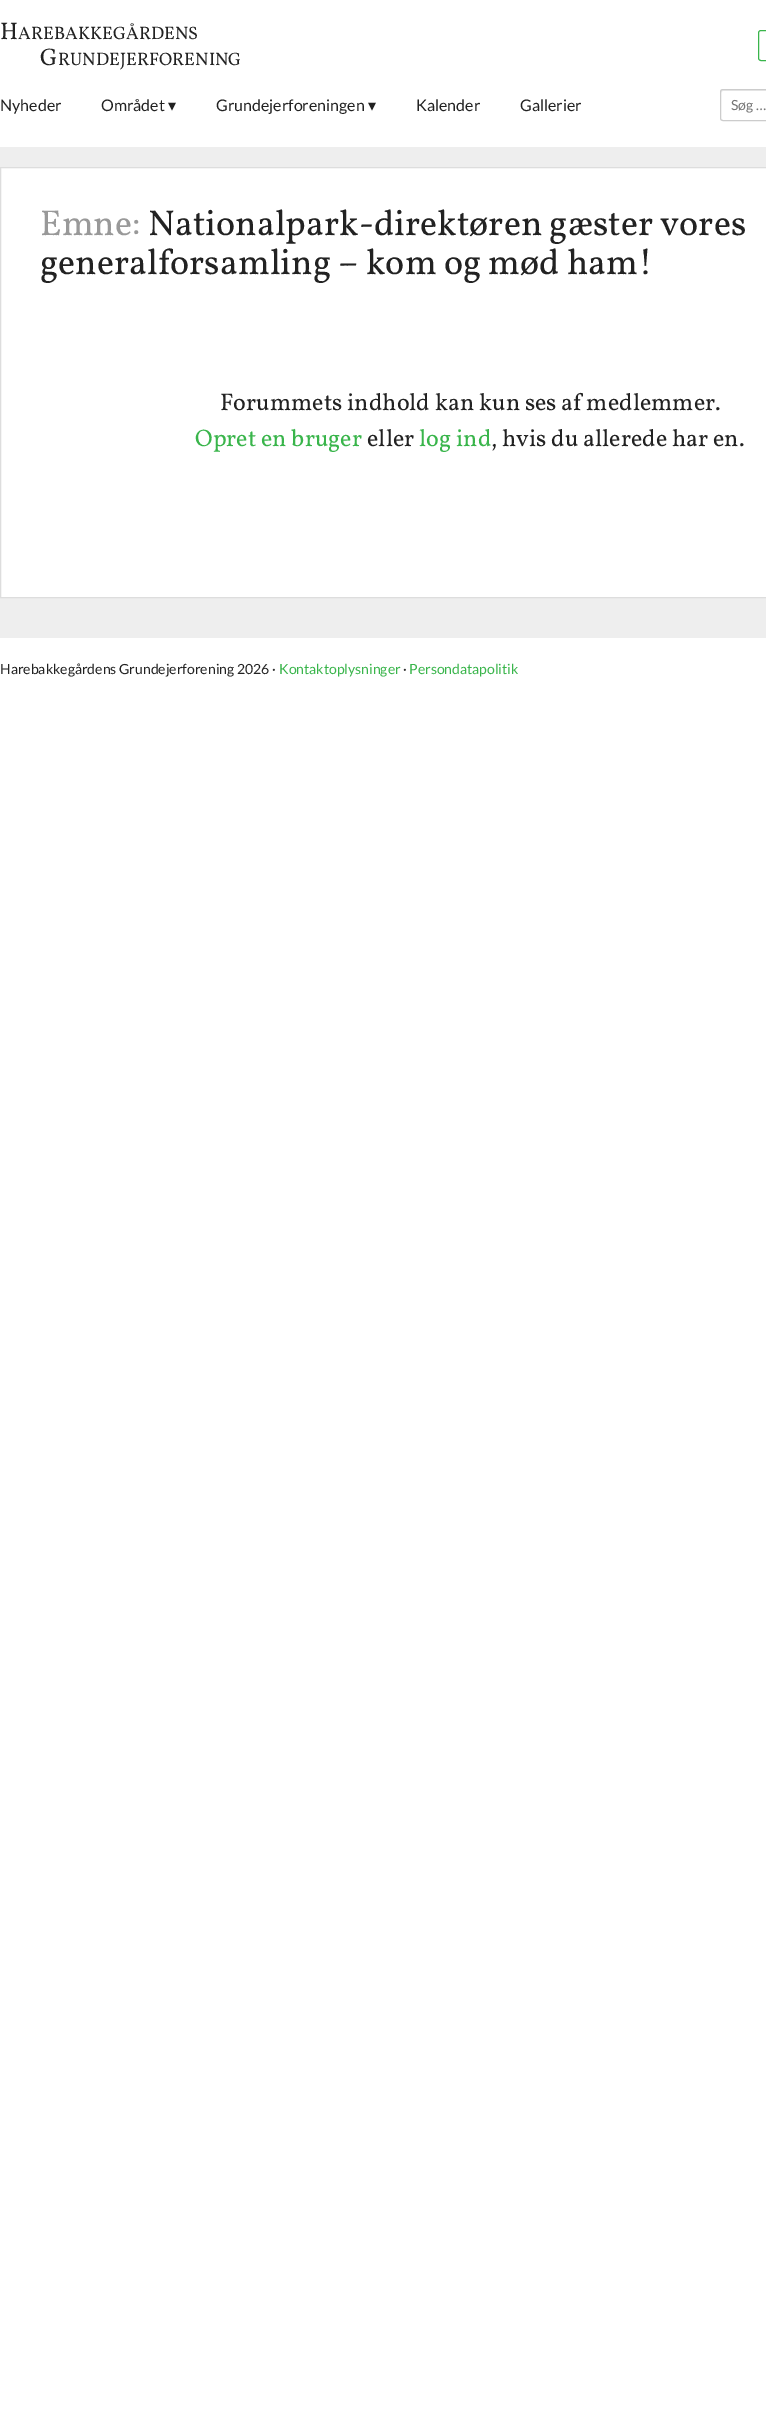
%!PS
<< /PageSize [766 2426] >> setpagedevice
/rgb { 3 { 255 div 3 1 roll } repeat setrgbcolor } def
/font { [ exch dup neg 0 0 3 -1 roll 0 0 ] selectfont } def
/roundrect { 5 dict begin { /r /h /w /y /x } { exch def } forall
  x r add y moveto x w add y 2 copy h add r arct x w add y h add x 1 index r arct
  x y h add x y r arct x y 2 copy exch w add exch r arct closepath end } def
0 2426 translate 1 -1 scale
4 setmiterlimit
255 255 255 rgb
0 0 766 2426 rectfill
57 181 75 rgb
758.5 30.5 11 30 2.5 roundrect stroke
236 236 236 rgb
723 91 moveto 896 91 lineto 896 90 lineto 722 90 lineto 721 91 721 92 721 93 curveto 721 92 722 91 723 91 curveto closepath fill
204 204 204 rgb
723 89.5 moveto 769.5 89.5 lineto 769.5 120.5 lineto 723 120.5 lineto 721.5 120.5 720.5 119.5 720.5 118 curveto 720.5 92 lineto 720.5 90.5 721.5 89.5 723 89.5 curveto closepath stroke
238 238 238 rgb
0 147 766 491 rectfill
255 255 255 rgb
0.5 167.5 moveto 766.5 167.5 lineto 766.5 597.5 lineto 0.5 597.5 lineto closepath gsave fill grestore
221 221 221 rgb
stroke
/Vollkorn-Regular 24 font
34 34 34 rgb
0 39 moveto (H) show
/Vollkorn-Regular 18 font
18 39 moveto (AREBAKKEGÅRDENS) show
/Vollkorn-Regular 24 font
40 65 moveto (G) show
/Vollkorn-Regular 18 font
58 65 moveto (RUNDEJERFORENING) show
/Lato-Regular 16 font
0 111 moveto (Nyheder) show
101 111 moveto (Området) show
/DejaVuSans-Regular 16 font
168 111 moveto (▾) show
/Lato-Regular 16 font
216 111 moveto (Grundejerforeningen) show
/DejaVuSans-Regular 16 font
368 111 moveto (▾) show
/Lato-Regular 16 font
416 111 moveto (Kalender) show
520 111 moveto (Gallerier) show
/Lato-Regular 14 font
117 117 117 rgb
731 110 moveto (Søg …) show
/Vollkorn-Regular 36 font
153 153 153 rgb
40 235 moveto (Emne:) show
34 34 34 rgb
148 235 moveto (Nationalpark-direktøren gæster vores) show
40 274 moveto (generalforsamling – kom og mød ham!) show
/Vollkorn-Regular 24 font
220 410 moveto (Forummets indhold kan kun ses af medlemmer.) show
57 181 75 rgb
195 446 moveto (Opret en bruger) show
34 34 34 rgb
367 446 moveto (eller) show
57 181 75 rgb
419 446 moveto (log ind) show
34 34 34 rgb
491 446 moveto (, hvis du allerede har en.) show
/Lato-Regular 14 font
0 674 moveto (Harebakkegårdens Grundejerforening 2026 ·) show
57 181 75 rgb
279 674 moveto (Kontaktoplysninger) show
34 34 34 rgb
403 674 moveto (·) show
57 181 75 rgb
409 674 moveto (Persondatapolitik) show
showpage
